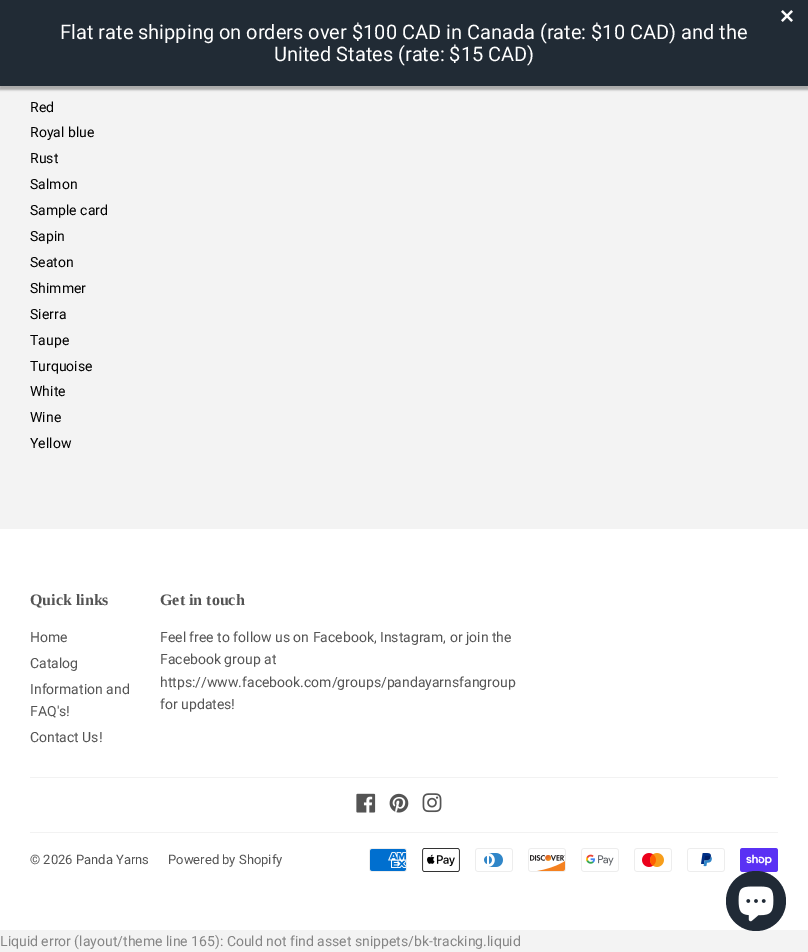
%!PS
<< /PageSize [808 952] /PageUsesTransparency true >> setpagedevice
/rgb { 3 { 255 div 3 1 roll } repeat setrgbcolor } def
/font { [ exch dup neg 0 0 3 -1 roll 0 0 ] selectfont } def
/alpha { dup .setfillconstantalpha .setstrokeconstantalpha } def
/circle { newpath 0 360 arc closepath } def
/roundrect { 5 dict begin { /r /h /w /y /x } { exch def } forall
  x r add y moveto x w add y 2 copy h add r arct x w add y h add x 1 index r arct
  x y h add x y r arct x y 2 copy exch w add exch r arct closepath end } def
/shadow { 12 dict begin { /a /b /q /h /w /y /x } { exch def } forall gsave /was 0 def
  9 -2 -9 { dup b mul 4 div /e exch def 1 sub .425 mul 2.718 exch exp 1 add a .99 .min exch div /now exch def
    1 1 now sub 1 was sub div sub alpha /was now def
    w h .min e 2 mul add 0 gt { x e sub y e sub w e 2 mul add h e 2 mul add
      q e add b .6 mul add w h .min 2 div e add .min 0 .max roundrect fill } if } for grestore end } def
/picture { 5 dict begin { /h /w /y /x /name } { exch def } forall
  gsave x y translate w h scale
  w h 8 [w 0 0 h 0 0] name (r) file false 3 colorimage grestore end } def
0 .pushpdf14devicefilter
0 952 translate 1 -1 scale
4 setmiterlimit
243 243 243 rgb
0 0 808 952 rectfill
0 0 0 rgb
-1 2 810 88 0 1 0.3 shadow
33 43 53 rgb
0 0 808 86 rectfill
(img/1.rgb) 781 10 12 12 picture
255 255 255 rgb
0 529 808 401 rectfill
242 242 242 rgb
30 777 748 1 rectfill
(img/2.rgb) 356 793 20 20 picture
(img/3.rgb) 389 793 20 20 picture
(img/4.rgb) 422 793 20 20 picture
30 832 748 1 rectfill
(img/5.rgb) 369 848 38 24 picture
(img/6.rgb) 422 848 38 24 picture
(img/7.rgb) 475 848 38 24 picture
(img/8.rgb) 528 848 38 24 picture
(img/9.rgb) 581 848 38 24 picture
(img/10.rgb) 634 848 38 24 picture
(img/11.rgb) 687 848 38 24 picture
(img/12.rgb) 740 848 38 24 picture
32 42 54 rgb
756 901 30 circle fill
(img/13.rgb) 738 886 36 36 picture
/Roboto-Regular 20 font
255 255 255 rgb
60 39 moveto (Flat rate shipping on orders over $100 CAD in Canada \(rate: $10 CAD\) and the) show
274 61 moveto (United States \(rate: $15 CAD\)) show
/Roboto-Regular 14 font
0 0 0 rgb
[
  [(Red) 30 112]
  [(Royal blue) 30 137]
  [(Rust) 30 163]
  [(Salmon) 30 189]
  [(Sample card) 30 215]
  [(Sapin) 30 241]
  [(Seaton) 30 267]
  [(Shimmer) 30 293]
  [(Sierra) 30 319]
  [(Taupe) 30 345]
  [(Turquoise) 30 371]
  [(White) 30 396]
  [(Wine) 30 422]
  [(Yellow) 30 448]
] { aload pop moveto show } forall
/LiberationSerif-Bold 16 font
84 84 84 rgb
30 605 moveto (Quick links) show
/Roboto-Regular 14 font
[
  [(Home) 30 642]
  [(Catalog) 30 668]
  [(Information and) 30 694]
  [(FAQ's!) 30 716]
  [(Contact Us!) 30 742]
] { aload pop moveto show } forall
/LiberationSerif-Bold 16 font
160 605 moveto (Get in touch) show
/Roboto-Regular 14 font
[
  [(Feel free to follow us on Facebook, Instagram, or join the) 160 642]
  [(Facebook group at) 160 664]
  [(https://www.facebook.com/groups/pandayarnsfangroup) 160 687]
  [(for updates!) 160 709]
] { aload pop moveto show } forall
/Roboto-Regular 13 font
30 864 moveto (© 2026 Panda Yarns) show
168 864 moveto (Powered by Shopify) show
/Roboto-Regular 14 font
133 133 133 rgb
0 946 moveto (Liquid error \(layout/theme line 165\): Could not find asset snippets/bk-tracking.liquid) show
.poppdf14devicefilter showpage
